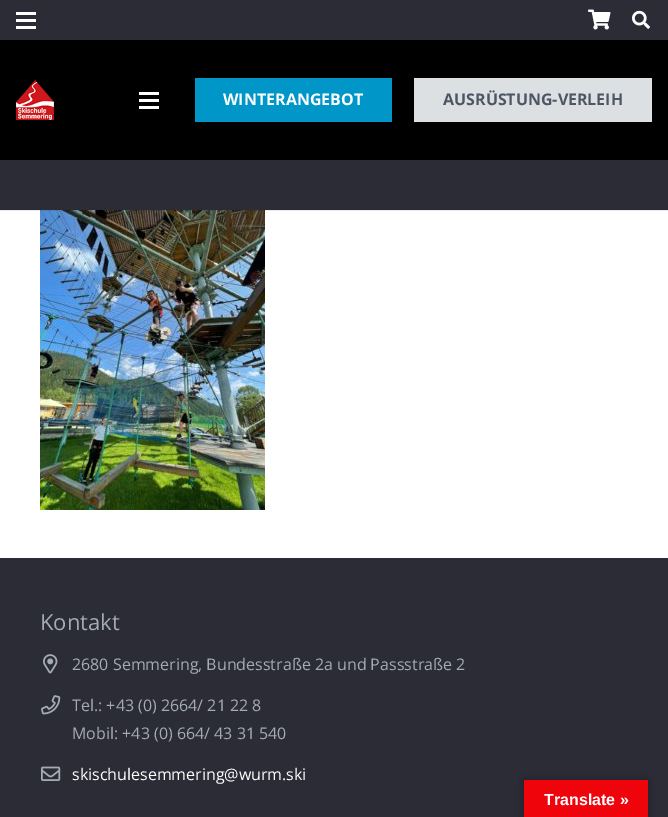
%!PS
<< /PageSize [668 817] /PageUsesTransparency true >> setpagedevice
/rgb { 3 { 255 div 3 1 roll } repeat setrgbcolor } def
/font { [ exch dup neg 0 0 3 -1 roll 0 0 ] selectfont } def
/alpha { dup .setfillconstantalpha .setstrokeconstantalpha } def
/roundrect { 5 dict begin { /r /h /w /y /x } { exch def } forall
  x r add y moveto x w add y 2 copy h add r arct x w add y h add x 1 index r arct
  x y h add x y r arct x y 2 copy exch w add exch r arct closepath end } def
/shadow { 12 dict begin { /a /b /q /h /w /y /x } { exch def } forall gsave /was 0 def
  9 -2 -9 { dup b mul 4 div /e exch def 1 sub .425 mul 2.718 exch exp 1 add a .99 .min exch div /now exch def
    1 1 now sub 1 was sub div sub alpha /was now def
    w h .min e 2 mul add 0 gt { x e sub y e sub w e 2 mul add h e 2 mul add
      q e add b .6 mul add w h .min 2 div e add .min 0 .max roundrect fill } if } for grestore end } def
/picture { 5 dict begin { /h /w /y /x /name } { exch def } forall
  gsave x y translate w h scale
  w h 8 [w 0 0 h 0 0] name (r) file false 3 colorimage grestore end } def
0 .pushpdf14devicefilter
0 817 translate 1 -1 scale
4 setmiterlimit
255 255 255 rgb
0 0 668 817 rectfill
[
  [0 0 668 40 43 44 54]
  [16 19 20 3 255 255 255]
  [16 12 20 3 255 255 255]
  [16 26 20 3 255 255 255]
] { aload pop rgb rectfill } forall
(img/1.rgb) 588 9 23 21 picture
(img/2.rgb) 632 10 18 19 picture
0 0 0 rgb
0 40 668 120 rectfill
(img/3.rgb) 16 80 38 40 picture
[
  [139 99 20 3 255 255 255]
  [139 92 20 3 255 255 255]
  [139 106 20 3 255 255 255]
  [195 78 197 44 0 150 199]
] { aload pop rgb rectfill } forall
220 224 227 rgb
414 78 238 44 0.5 roundrect fill
(img/4.rgb) 40 210 225 300 picture
0.08 alpha
[
  [0 210 668 1 0 0 0]
] { aload pop rgb rectfill } forall
1 alpha
[
  [0 160 668 50 43 44 54]
  [0 558 668 259 43 44 54]
] { aload pop rgb rectfill } forall
(img/5.rgb) 43 654 15 20 picture
(img/6.rgb) 41 695 20 20 picture
(img/7.rgb) 41 766 20 15 picture
0 0 0 rgb
524 780 124 37 0 4.5 0.3 shadow
239 4 12 rgb
524 780 124 37 rectfill
/OpenSans-Bold 16 font
255 255 255 rgb
223 105 moveto (WINTERANGEBOT) show
78 86 99 rgb
443 105 moveto (AUSRÜSTUNG-VERLEIH) show
/OpenSans-Regular 22 font
164 171 179 rgb
40 630 moveto (Kontakt) show
/OpenSans-Regular 16 font
[
  [(2680 Semmering, Bundesstraße 2a und Passstraße 2) 72 670]
  [(Tel.: +43 \(0\) 2664/ 21 22 8) 72 711]
  [(Mobil: +43 \(0\) 664/ 43 31 540) 72 739]
] { aload pop moveto show } forall
255 255 255 rgb
72 780 moveto (skischulesemmering@wurm.ski) show
/LiberationSans-Bold 16 font
544 805 moveto (Translate ») show
.poppdf14devicefilter showpage
